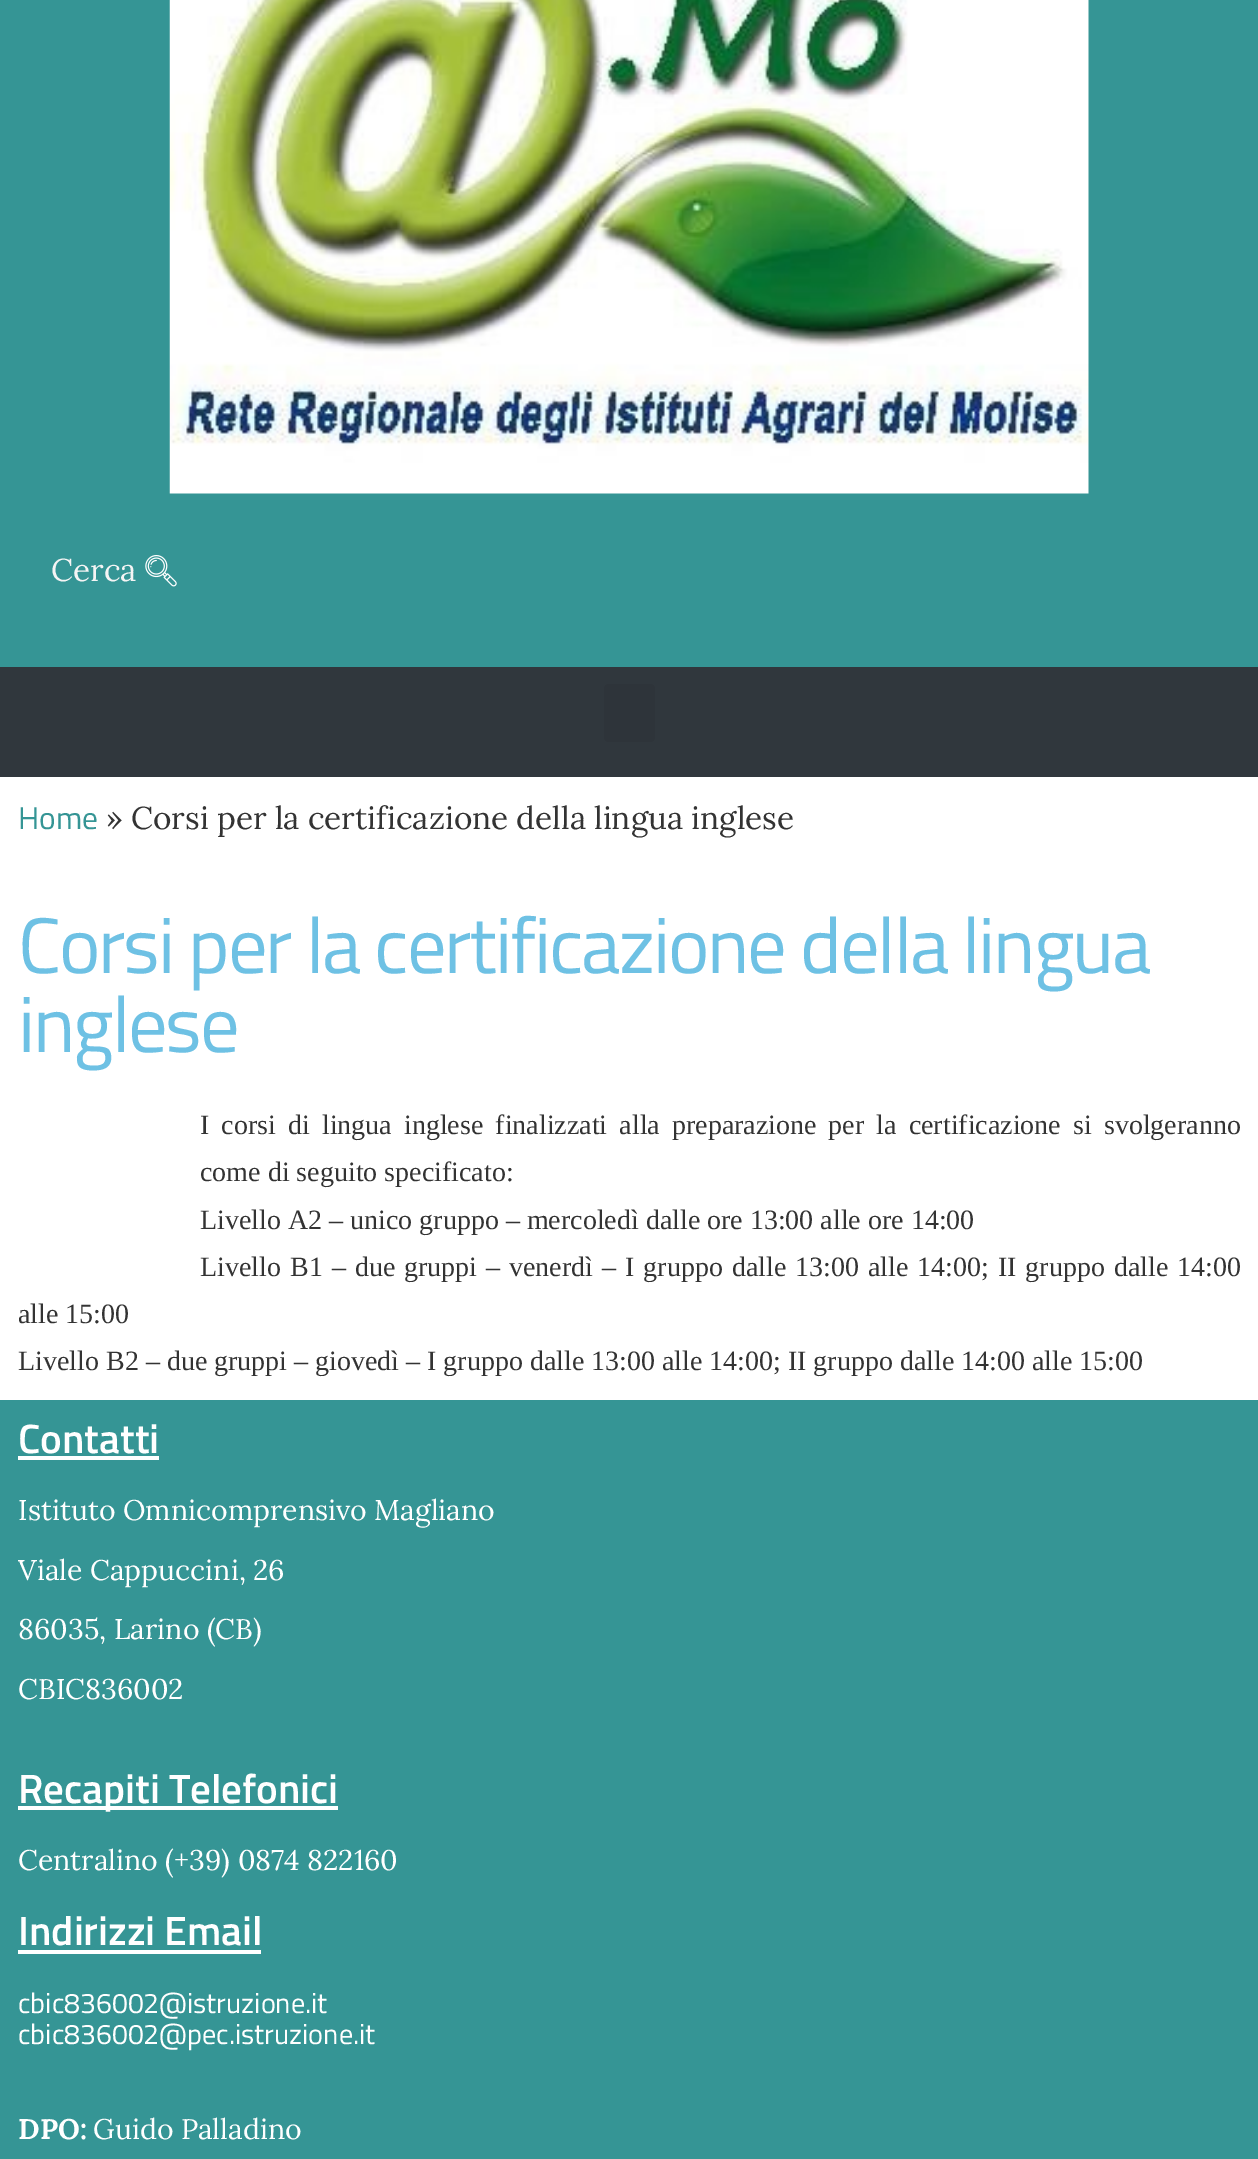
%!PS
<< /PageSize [1258 2159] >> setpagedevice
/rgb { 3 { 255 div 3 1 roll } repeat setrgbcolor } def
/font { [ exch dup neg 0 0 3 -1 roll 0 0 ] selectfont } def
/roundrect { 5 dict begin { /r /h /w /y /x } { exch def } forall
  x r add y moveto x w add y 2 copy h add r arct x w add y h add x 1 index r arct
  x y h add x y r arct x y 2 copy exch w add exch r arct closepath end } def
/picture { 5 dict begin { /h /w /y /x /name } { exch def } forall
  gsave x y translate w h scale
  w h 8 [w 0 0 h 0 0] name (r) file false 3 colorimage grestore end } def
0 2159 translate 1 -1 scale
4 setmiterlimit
255 255 255 rgb
0 0 1258 2159 rectfill
53 149 149 rgb
0 0 1258 667 rectfill
(img/1.rgb) 169 0 920 494 picture
(img/2.rgb) 145 555 32 32 picture
48 55 61 rgb
0 667 1258 110 rectfill
46 52 58 rgb
604 684 51 58 5 roundrect fill
[
  [0 1400 1258 759 53 149 149]
  [18 1456 141 4 255 255 255]
  [18 1806 320 4 255 255 255]
  [18 1950 243 4 255 255 255]
] { aload pop rgb rectfill } forall
/Lora-Regular 31.5 font
245 245 245 rgb
51 581 moveto (Cerca) show
/TitilliumWeb-Regular 31.5 font
53 149 149 rgb
18 829 moveto (Home) show
/Lora-Regular 31.5 font
51 51 51 rgb
106 829 moveto (» Corsi per la certificazione della lingua inglese) show
/TitilliumWeb-Regular 78.75 font
110 193 228 rgb
18 973 moveto -2.1 0 (Corsi per la certificazione della lingua) ashow
18 1052 moveto -2.1 0 (inglese) ashow
/LiberationSerif-Regular 28 font
51 51 51 rgb
200 1134 moveto 5.1 0 32 (I corsi di lingua inglese finalizzati alla preparazione per la certificazione si svolgeranno) widthshow
200 1181 moveto (come di seguito specificato:) show
200 1229 moveto (Livello A2 – unico gruppo – mercoledì dalle ore 13:00 alle ore 14:00) show
200 1276 moveto 2 0 32 (Livello B1 – due gruppi – venerdì – I gruppo dalle 13:00 alle 14:00; II gruppo dalle 14:00) widthshow
18 1323 moveto (alle 15:00) show
18 1370 moveto (Livello B2 – due gruppi – giovedì – I gruppo dalle 13:00 alle 14:00; II gruppo dalle 14:00 alle 15:00) show
/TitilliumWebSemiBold-SemiBold 41 font
255 255 255 rgb
18 1453 moveto (Contatti) show
/Lora-Regular 28.4 font
[
  [(Istituto Omnicomprensivo Magliano) 18 1520]
  [(Viale Cappuccini, 26) 18 1580]
  [(86035, Larino \(CB\)) 18 1639]
  [(CBIC836002) 18 1699]
] { aload pop moveto show } forall
/TitilliumWebSemiBold-SemiBold 41 font
18 1803 moveto (Recapiti Telefonici) show
/Lora-Regular 28.4 font
18 1870 moveto (Centralino \(+39\) 0874 822160) show
/TitilliumWebSemiBold-SemiBold 41 font
18 1945 moveto (Indirizzi Email) show
/TitilliumWeb-Regular 28.4 font
18 2013 moveto (cbic836002@istruzione.it) show
18 2044 moveto (cbic836002@pec.istruzione.it) show
/Lora-Bold 28.4 font
18 2139 moveto (DPO:) show
/Lora-Regular 28.4 font
93 2139 moveto (Guido Palladino) show
showpage
